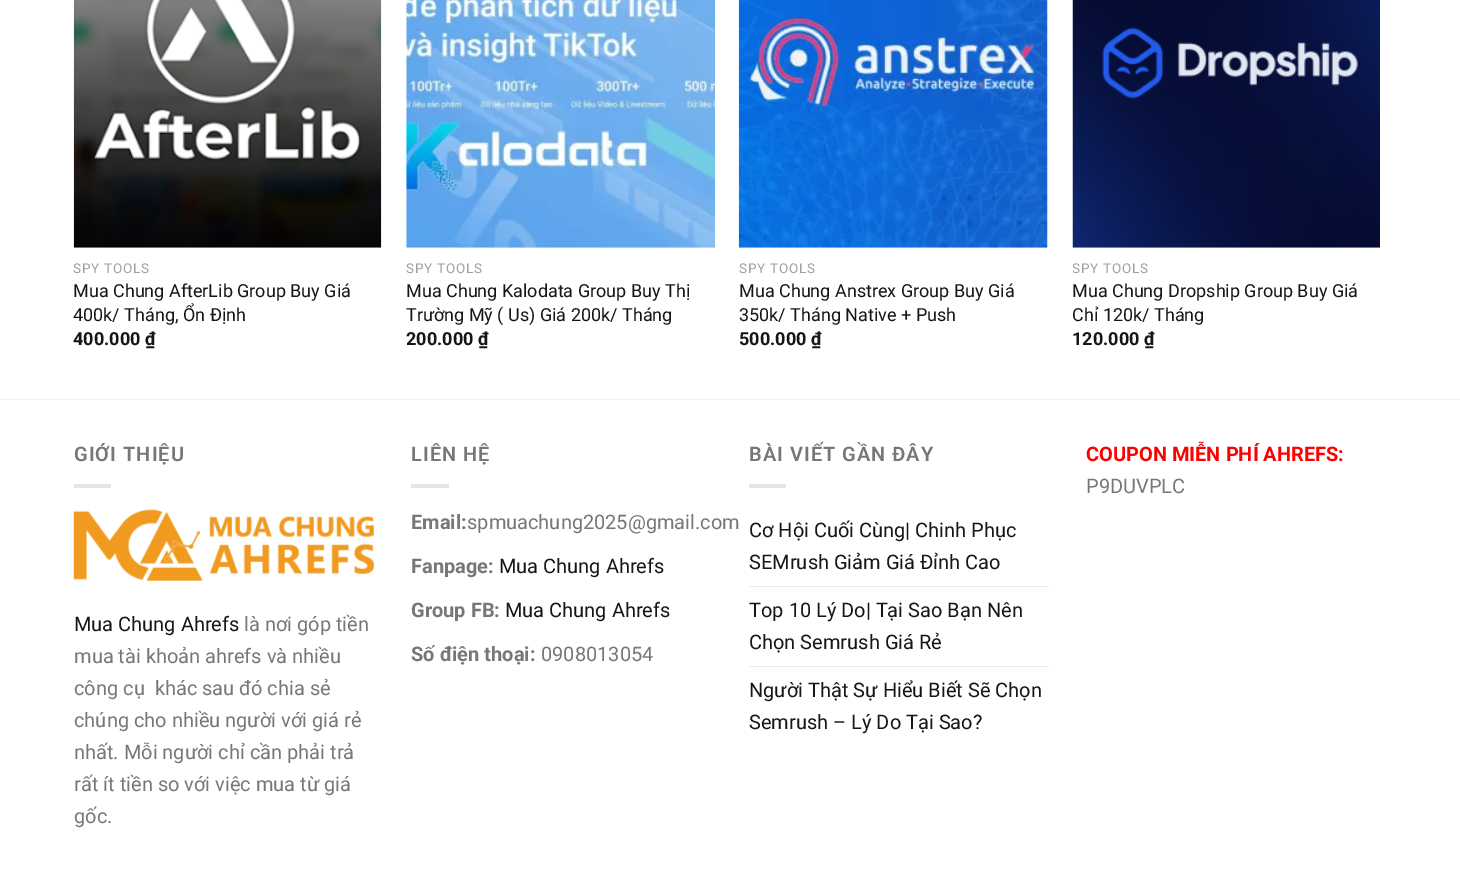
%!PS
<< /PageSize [1460 880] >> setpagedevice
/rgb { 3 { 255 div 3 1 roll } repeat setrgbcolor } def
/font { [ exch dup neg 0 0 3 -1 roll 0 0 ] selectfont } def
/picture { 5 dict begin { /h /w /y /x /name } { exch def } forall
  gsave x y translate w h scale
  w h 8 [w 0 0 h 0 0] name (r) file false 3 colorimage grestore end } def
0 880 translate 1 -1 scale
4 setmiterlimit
255 255 255 rgb
0 0 1460 880 rectfill
(img/1.rgb) 73 0 309 248 picture
(img/2.rgb) 406 0 309 248 picture
(img/3.rgb) 738 0 310 248 picture
(img/4.rgb) 1072 0 308 248 picture
242 242 242 rgb
0 399 1460 1 rectfill
230 230 230 rgb
74 484 37 4 rectfill
(img/5.rgb) 73 509 301 72 picture
[
  [411 484 38 4 230 230 230]
  [749 484 37 4 230 230 230]
  [749 586 300 1 236 236 236]
  [749 666 300 1 236 236 236]
] { aload pop rgb rectfill } forall
/Roboto-Regular 13.5 font
160 160 160 rgb
73 273 moveto 0.75 0 (SPY TOOLS) ashow
/Roboto-Regular 18 font
22 22 22 rgb
73 297 moveto (Mua Chung AfterLib Group Buy Giá) show
73 321 moveto (400k/ Tháng, Ổn Định) show
/Roboto-Bold 18 font
73 345 moveto (400.000 ₫) show
/Roboto-Regular 13.5 font
160 160 160 rgb
406 273 moveto 0.75 0 (SPY TOOLS) ashow
/Roboto-Regular 18 font
22 22 22 rgb
406 297 moveto (Mua Chung Kalodata Group Buy Thị) show
406 321 moveto (Trường Mỹ \( Us\) Giá 200k/ Tháng) show
/Roboto-Bold 18 font
406 345 moveto (200.000 ₫) show
/Roboto-Regular 13.5 font
160 160 160 rgb
739 273 moveto 0.75 0 (SPY TOOLS) ashow
/Roboto-Regular 18 font
22 22 22 rgb
739 297 moveto (Mua Chung Anstrex Group Buy Giá) show
739 321 moveto (350k/ Tháng Native + Push) show
/Roboto-Bold 18 font
739 345 moveto (500.000 ₫) show
gsave
1073 261 307 17 rectclip
/Roboto-Regular 13.5 font
160 160 160 rgb
1072 273 moveto 0.75 0 (SPY TOOLS) ashow
grestore
/Roboto-Regular 18 font
1072 297 moveto (Mua Chung Dropship Group Buy Giá) show
1072 321 moveto (Chỉ 120k/ Tháng) show
/Roboto-Bold 18 font
1072 345 moveto (120.000 ₫) show
/Roboto-SemiBold 20 font
119 119 119 rgb
74 461 moveto 1 0 (GIỚI THIỆU) ashow
/Roboto-Regular 20 font
22 22 22 rgb
74 631 moveto (Mua Chung Ahrefs) show
119 119 119 rgb
[
  [(là nơi góp tiền) 244 631]
  [(mua tài khoản ahrefs và nhiều) 74 663]
  [(công cụ  khác sau đó chia sẻ) 74 695]
  [(chúng cho nhiều người với giá rẻ) 74 727]
  [(nhất. Mỗi người chỉ cần phải trả) 74 759]
  [(rất ít tiền so với việc mua từ giá) 74 791]
  [(gốc.) 74 823]
] { aload pop moveto show } forall
/Roboto-SemiBold 20 font
411 461 moveto 1 0 (LIÊN HỆ) ashow
/Roboto-Bold 20 font
411 529 moveto (Email:) show
/Roboto-Regular 20 font
467 529 moveto (spmuachung2025@gmail.com) show
/Roboto-Bold 20 font
411 573 moveto (Fanpage:) show
/Roboto-Regular 20 font
22 22 22 rgb
499 573 moveto (Mua Chung Ahrefs) show
/Roboto-Bold 20 font
119 119 119 rgb
411 617 moveto (Group FB:) show
/Roboto-Regular 20 font
22 22 22 rgb
505 617 moveto (Mua Chung Ahrefs) show
/Roboto-Bold 20 font
119 119 119 rgb
411 661 moveto (Số điện thoại:) show
/Roboto-Regular 20 font
541 661 moveto (0908013054) show
/Roboto-SemiBold 20 font
749 461 moveto 1 0 (BÀI VIẾT GẦN ĐÂY) ashow
/Roboto-Regular 20 font
22 22 22 rgb
[
  [(Cơ Hội Cuối Cùng| Chinh Phục) 749 537]
  [(SEMrush Giảm Giá Đỉnh Cao) 749 569]
  [(Top 10 Lý Do| Tại Sao Bạn Nên) 749 617]
  [(Chọn Semrush Giá Rẻ) 749 649]
  [(Người Thật Sự Hiểu Biết Sẽ Chọn) 749 697]
  [(Semrush – Lý Do Tại Sao?) 749 729]
] { aload pop moveto show } forall
/Roboto-Bold 20 font
255 0 0 rgb
1086 461 moveto (COUPON MIỄN PHÍ AHREFS:) show
/Roboto-Regular 20 font
119 119 119 rgb
1086 493 moveto (P9DUVPLC) show
showpage
